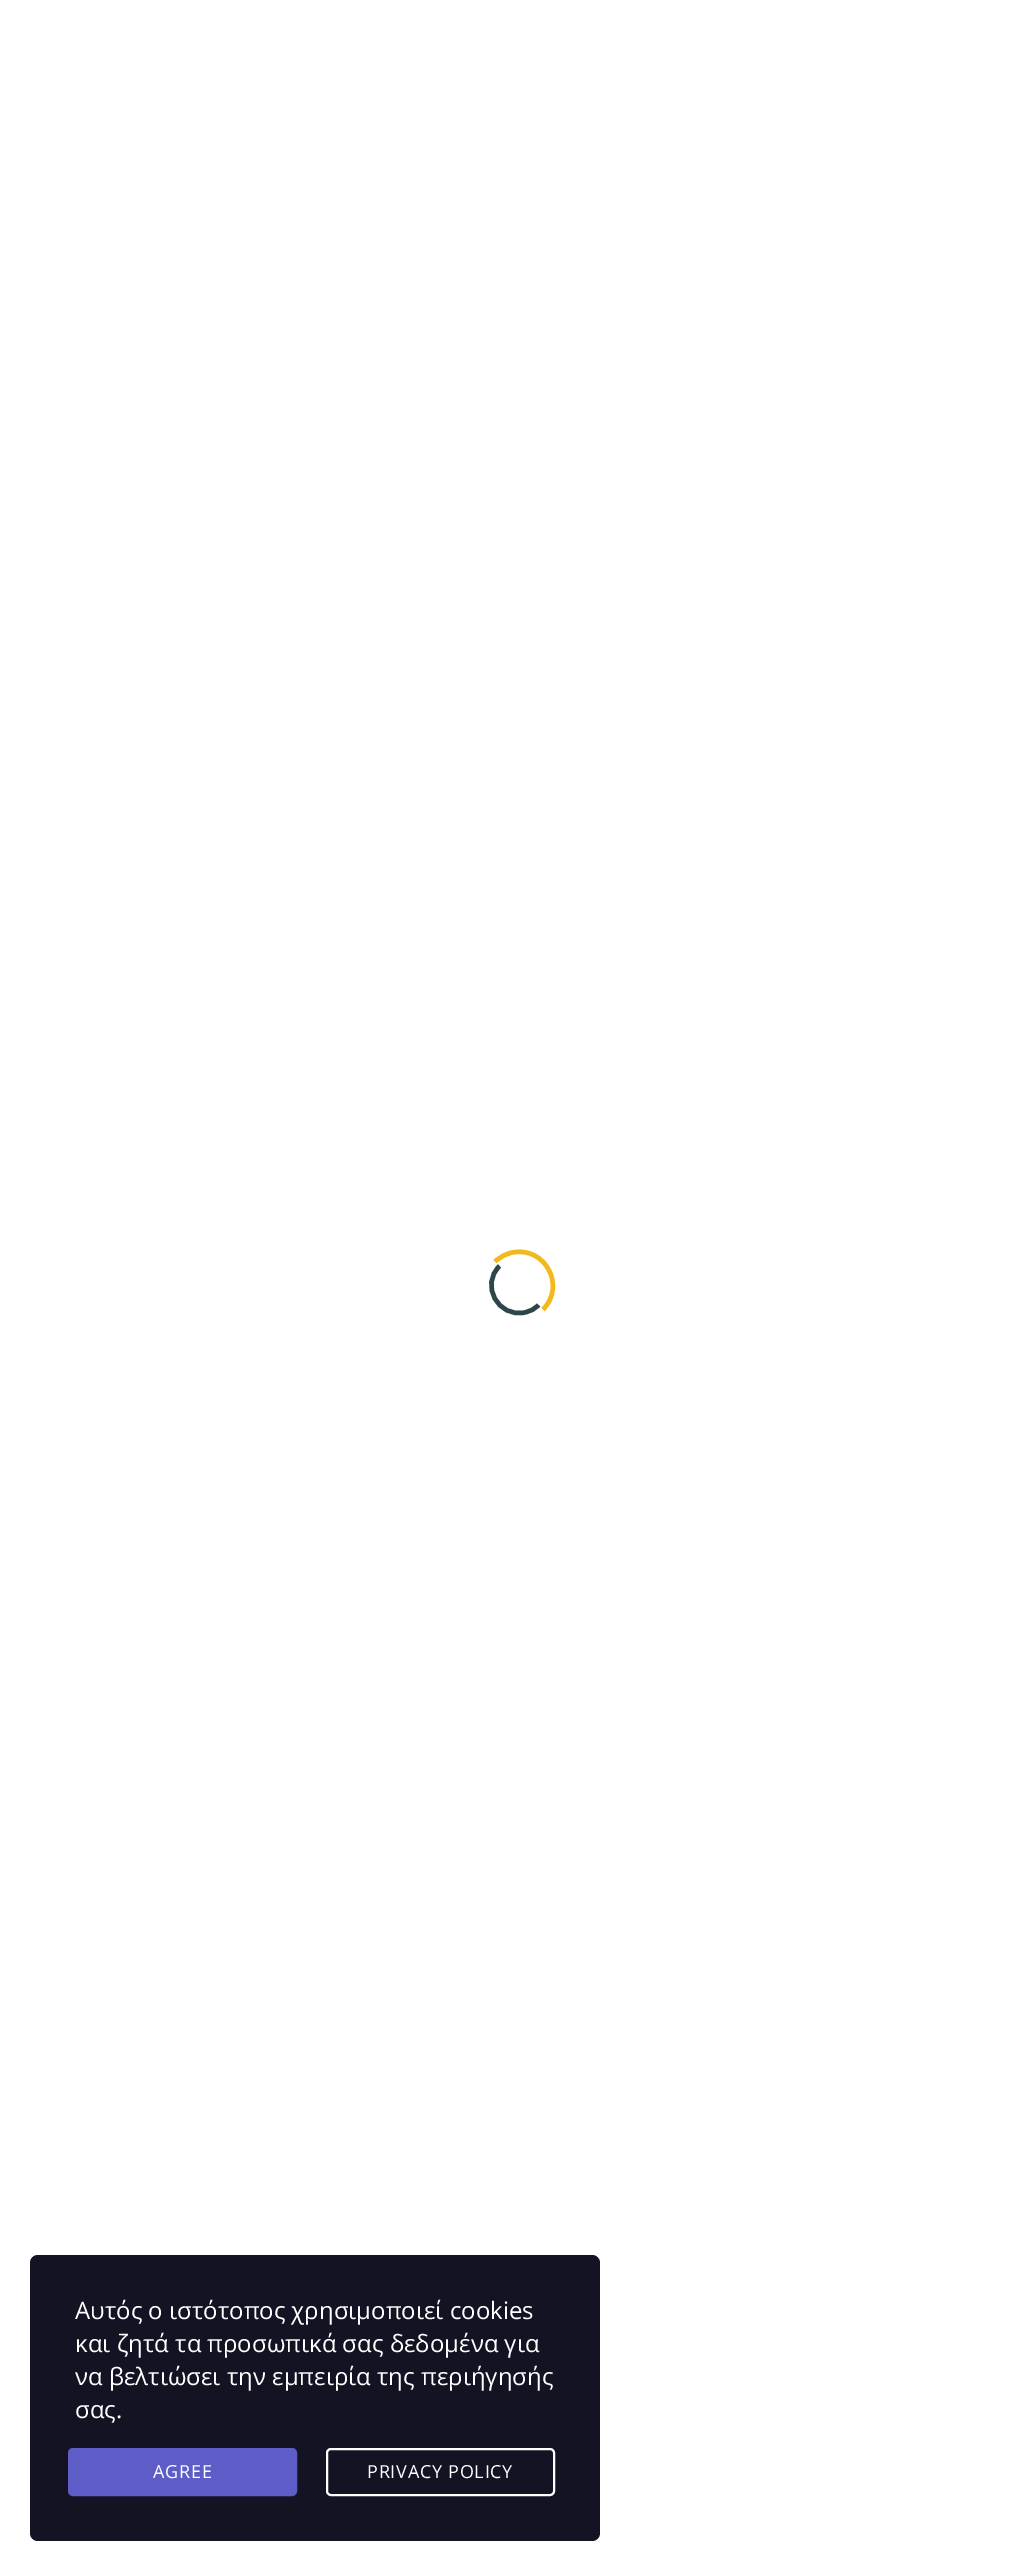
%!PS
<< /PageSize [1036 2571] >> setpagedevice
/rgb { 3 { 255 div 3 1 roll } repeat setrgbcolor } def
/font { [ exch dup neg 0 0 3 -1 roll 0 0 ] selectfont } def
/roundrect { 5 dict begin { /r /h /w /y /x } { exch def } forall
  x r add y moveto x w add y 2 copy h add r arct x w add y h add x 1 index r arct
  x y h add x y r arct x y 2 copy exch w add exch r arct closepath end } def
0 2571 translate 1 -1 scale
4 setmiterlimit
255 255 255 rgb
0 0 1036 2571 rectfill
242 185 30 rgb
4.5 setlinewidth
495 1261.5 moveto 500 1257 506 1253.5 512.5 1252.5 curveto 545 1246 566.5 1286 543 1309.5 curveto stroke
45 70 73 rgb
538.5 1305 moveto 535 1309 530 1311.5 524.5 1312.5 curveto 498 1318 480 1285 499.5 1266 curveto 538.5 1305 moveto 535 1309 530 1311.5 524.5 1312.5 curveto 498 1318 480 1285 499.5 1266 curveto stroke
19 19 35 rgb
30 2255 570 286 8 roundrect fill
94 92 199 rgb
69 2449 227 46 4 roundrect gsave fill grestore
2 setlinewidth
stroke
255 255 255 rgb
327 2449 227 46 4 roundrect stroke
/OpenSans-Regular 24 font
[
  [(Αυτός ο ιστότοπος χρησιμοποιεί cookies) 75 2319]
  [(και ζητά τα προσωπικά σας δεδομένα για) 75 2352]
  [(να βελτιώσει την εμπειρία της περιήγησής) 75 2385]
  [(σας.) 75 2418]
] { aload pop moveto show } forall
/OpenSans-Regular 18 font
153 2478 moveto 0.75 0 (AGREE) ashow
367 2478 moveto 0.75 0 (PRIVACY POLICY) ashow
showpage
